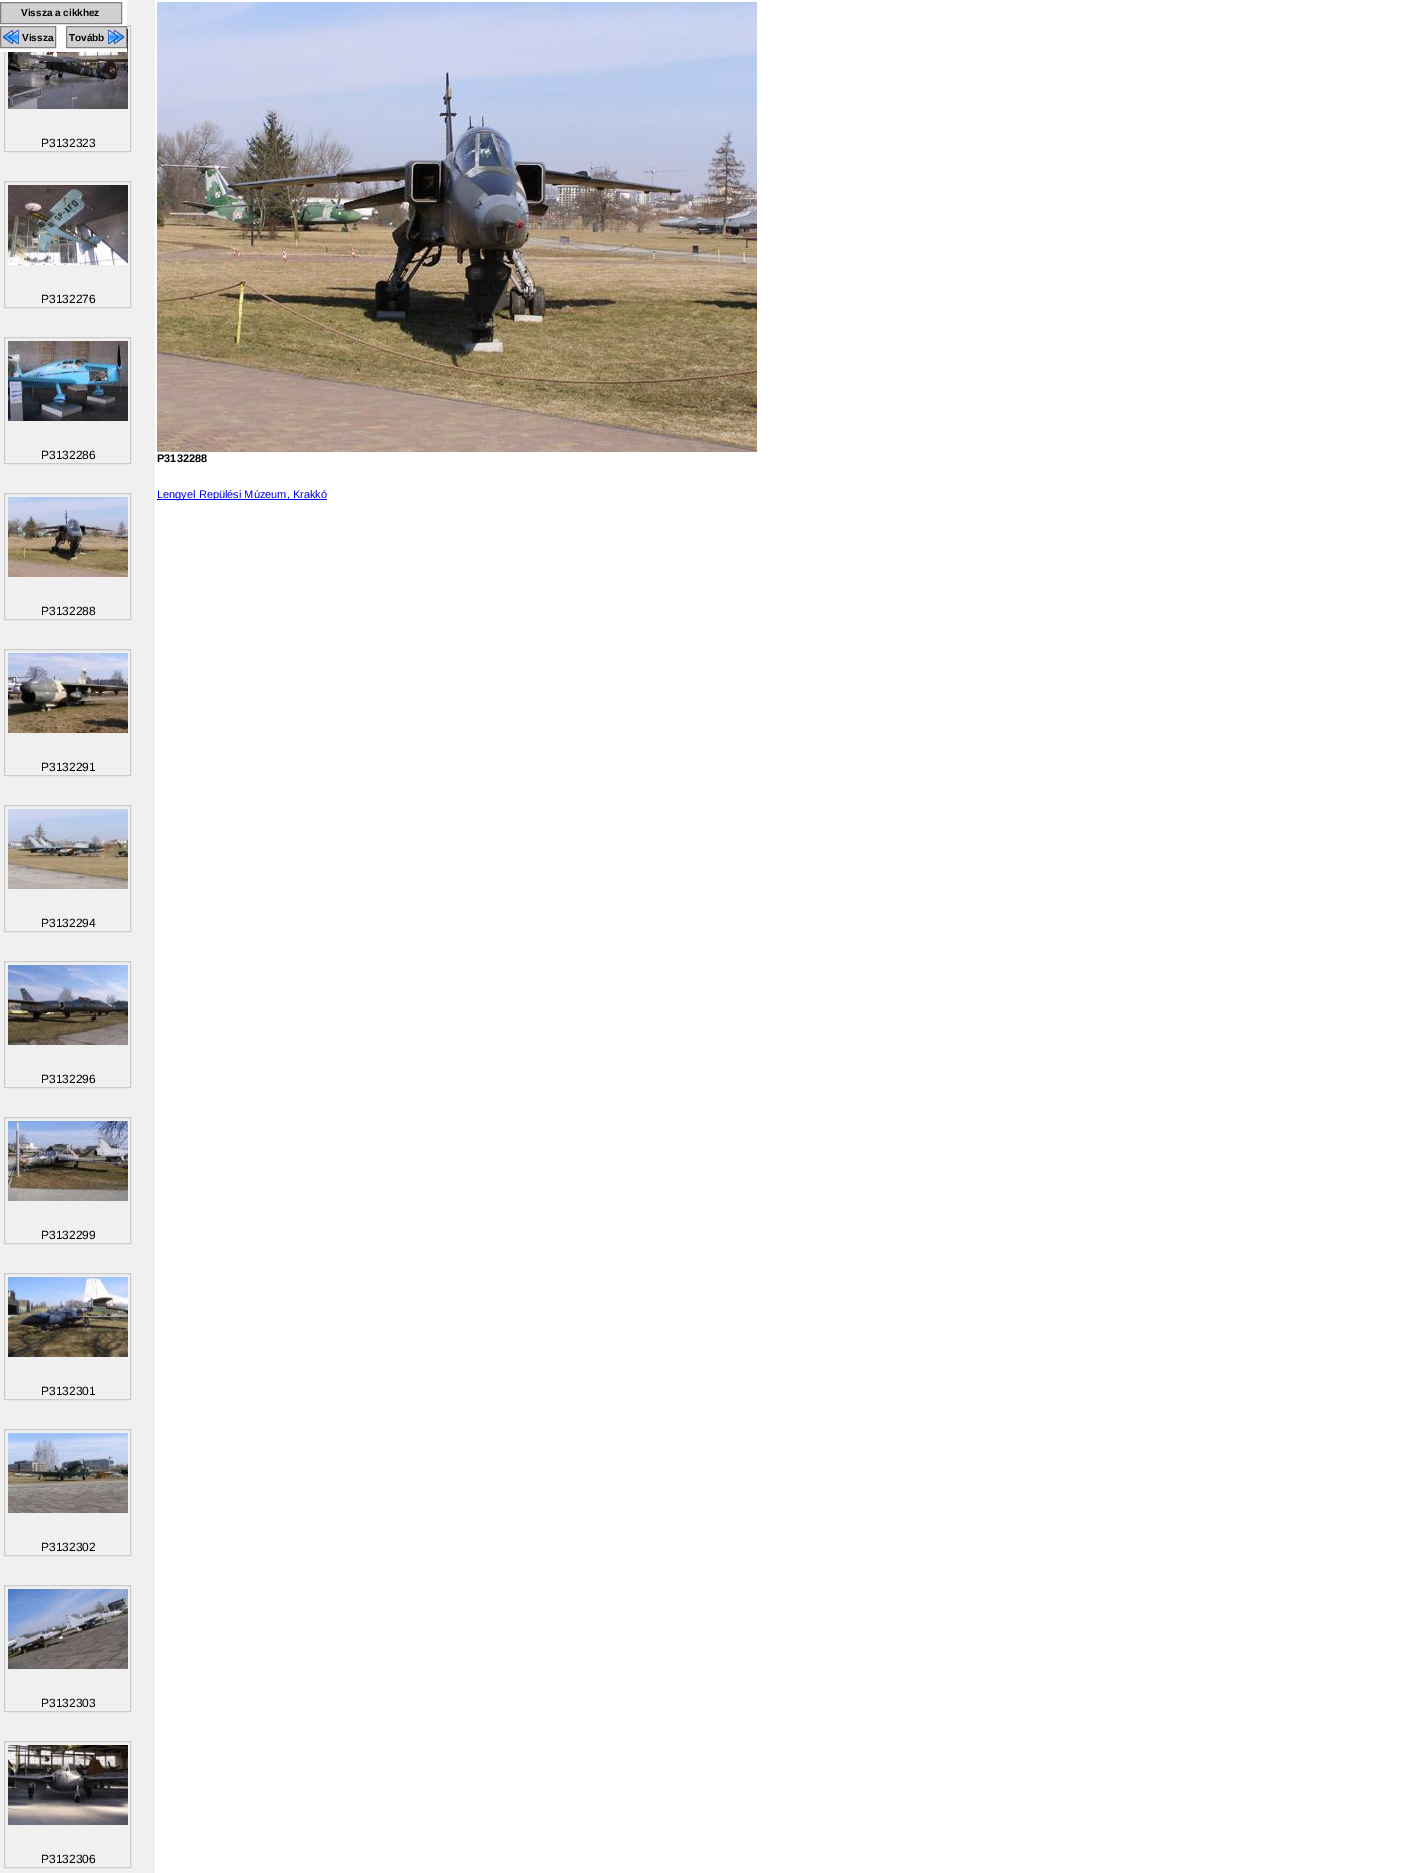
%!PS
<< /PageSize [1412 1873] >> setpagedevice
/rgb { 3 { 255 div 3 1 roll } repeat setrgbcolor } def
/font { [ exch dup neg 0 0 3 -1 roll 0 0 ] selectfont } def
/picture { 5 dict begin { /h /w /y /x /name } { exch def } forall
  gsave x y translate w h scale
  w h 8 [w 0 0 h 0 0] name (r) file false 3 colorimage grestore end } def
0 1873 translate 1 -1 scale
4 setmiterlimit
255 255 255 rgb
0 0 1412 1873 rectfill
240 240 240 rgb
0 0 155 1873 rectfill
204 204 204 rgb
4.5 25.5 126 126 rectstroke
(img/3.rgb) 8 29 120 80 picture
255 255 255 rgb
0 0 127 52 rectfill
208 208 208 rgb
0.5 2.5 moveto 121.5 2.5 lineto 121.5 23.5 lineto 0.5 23.5 lineto closepath gsave fill grestore
128 128 128 rgb
stroke
208 208 208 rgb
0.5 26.5 moveto 55.5 26.5 lineto 55.5 47.5 lineto 0.5 47.5 lineto closepath gsave fill grestore
128 128 128 rgb
stroke
(img/1.rgb) 3 30 16 14 picture
208 208 208 rgb
66.5 26.5 moveto 126.5 26.5 lineto 126.5 47.5 lineto 66.5 47.5 lineto closepath gsave fill grestore
128 128 128 rgb
stroke
(img/2.rgb) 108 30 16 14 picture
204 204 204 rgb
4.5 181.5 126 126 rectstroke
(img/4.rgb) 8 185 120 80 picture
4.5 337.5 126 126 rectstroke
(img/5.rgb) 8 341 120 80 picture
4.5 493.5 126 126 rectstroke
(img/6.rgb) 8 497 120 80 picture
4.5 649.5 126 126 rectstroke
(img/7.rgb) 8 653 120 80 picture
4.5 805.5 126 126 rectstroke
(img/8.rgb) 8 809 120 80 picture
4.5 961.5 126 126 rectstroke
(img/9.rgb) 8 965 120 80 picture
4.5 1117.5 126 126 rectstroke
(img/10.rgb) 8 1121 120 80 picture
4.5 1273.5 126 126 rectstroke
(img/11.rgb) 8 1277 120 80 picture
4.5 1429.5 126 126 rectstroke
(img/12.rgb) 8 1433 120 80 picture
4.5 1585.5 126 126 rectstroke
(img/13.rgb) 8 1589 120 80 picture
4.5 1741.5 126 126 rectstroke
(img/14.rgb) 8 1745 120 80 picture
(img/15.rgb) 157 2 600 450 picture
0 0 238 rgb
157 499 170 1 rectfill
/LiberationSans-Bold 10 font
0 0 0 rgb
[
  [(Vissza a cikkhez) 21 16]
  [(Vissza) 22 41]
  [(Tovább) 69 41]
] { aload pop moveto show } forall
/LiberationSans-Regular 12 font
[
  [(P3132323) 41 147]
  [(P3132276) 41 303]
  [(P3132286) 41 459]
  [(P3132288) 41 615]
  [(P3132291) 41 771]
  [(P3132294) 41 927]
  [(P3132296) 41 1083]
  [(P3132299) 41 1239]
  [(P3132301) 41 1395]
  [(P3132302) 41 1551]
  [(P3132303) 41 1707]
  [(P3132306) 41 1863]
] { aload pop moveto show } forall
/LiberationSans-Bold 11 font
157 462 moveto (P3132288) show
/LiberationSans-Regular 11 font
0 0 238 rgb
157 498 moveto (Lengyel Repülési Múzeum, Krakkó) show
showpage
